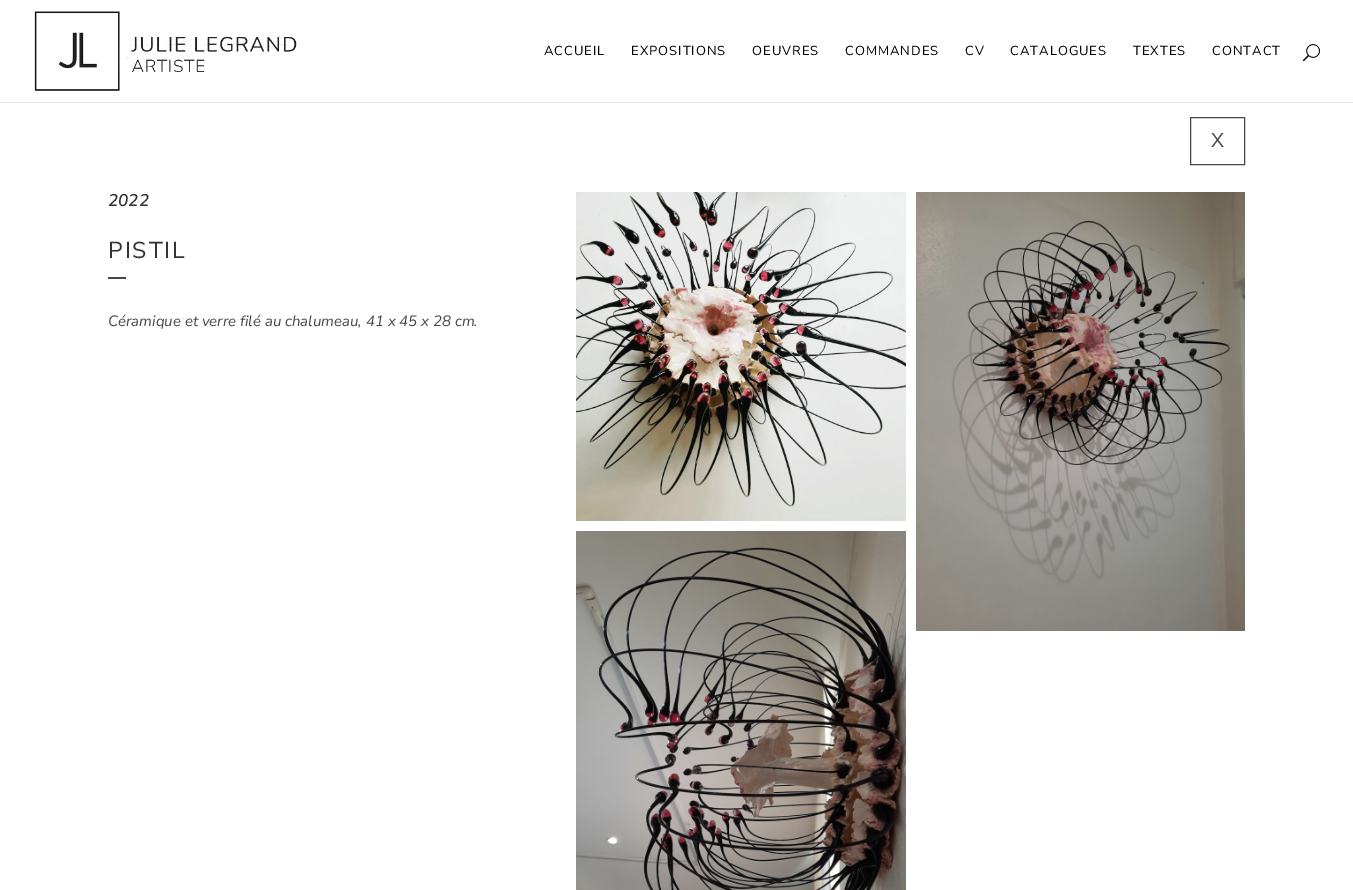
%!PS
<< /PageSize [1353 890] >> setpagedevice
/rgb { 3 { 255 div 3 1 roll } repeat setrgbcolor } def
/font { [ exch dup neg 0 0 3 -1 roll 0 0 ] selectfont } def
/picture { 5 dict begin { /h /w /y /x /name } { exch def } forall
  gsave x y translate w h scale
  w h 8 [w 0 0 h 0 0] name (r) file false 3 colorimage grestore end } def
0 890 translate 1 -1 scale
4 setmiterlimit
255 255 255 rgb
0 0 1353 890 rectfill
230 230 230 rgb
0 102 1353 1 rectfill
(img/1.rgb) 34 11 263 80 picture
(img/2.rgb) 1303 44 17 18 picture
71 71 71 rgb
1190.5 117.5 54 47 rectstroke
108 277 18 2 rectfill
(img/3.rgb) 576 192 330 329 picture
(img/4.rgb) 916 192 329 439 picture
(img/5.rgb) 576 531 330 359 picture
/NunitoSans-Regular 13 font
0 0 0 rgb
544 55 moveto 1 0 (ACCUEIL) ashow
631 55 moveto 1 0 (EXPOSITIONS) ashow
752 55 moveto 1 0 (OEUVRES) ashow
845 55 moveto 1 0 (COMMANDES) ashow
965 55 moveto 1 0 (CV) ashow
1010 55 moveto 1 0 (CATALOGUES) ashow
1133 55 moveto 1 0 (TEXTES) ashow
1212 55 moveto 1 0 (CONTACT) ashow
/NunitoSans-Regular 20 font
71 71 71 rgb
1211 147 moveto (X) show
/NunitoSans-SemiBoldItalic 17 font
51 51 51 rgb
108 206 moveto (2022) show
/NunitoSans-Regular 23 font
108 258 moveto 2 0 (PISTIL) ashow
/NunitoSans-Italic 15 font
71 71 71 rgb
108 326 moveto (Céramique et verre filé au chalumeau, 41 x 45 x 28 cm.) show
showpage
